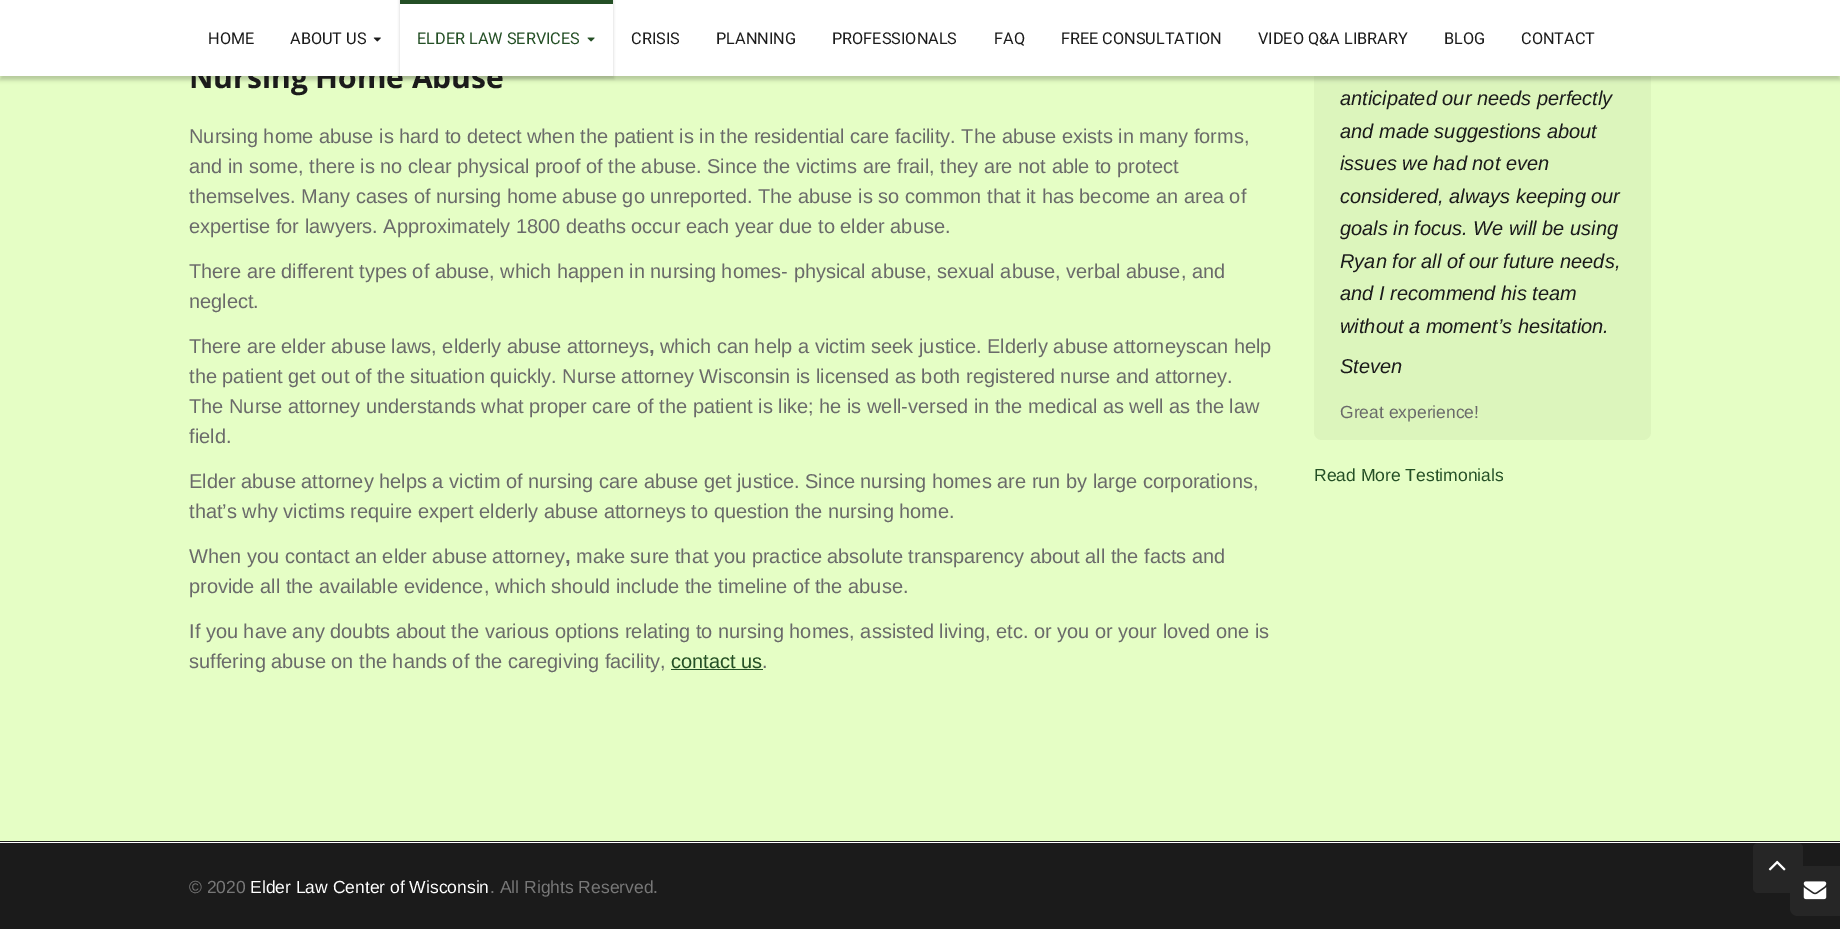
%!PS
<< /PageSize [1840 929] /PageUsesTransparency true >> setpagedevice
/rgb { 3 { 255 div 3 1 roll } repeat setrgbcolor } def
/font { [ exch dup neg 0 0 3 -1 roll 0 0 ] selectfont } def
/alpha { dup .setfillconstantalpha .setstrokeconstantalpha } def
/roundrect { 5 dict begin { /r /h /w /y /x } { exch def } forall
  x r add y moveto x w add y 2 copy h add r arct x w add y h add x 1 index r arct
  x y h add x y r arct x y 2 copy exch w add exch r arct closepath end } def
/shadow { 12 dict begin { /a /b /q /h /w /y /x } { exch def } forall gsave /was 0 def
  9 -2 -9 { dup b mul 4 div /e exch def 1 sub .425 mul 2.718 exch exp 1 add a .99 .min exch div /now exch def
    1 1 now sub 1 was sub div sub alpha /was now def
    w h .min e 2 mul add 0 gt { x e sub y e sub w e 2 mul add h e 2 mul add
      q e add b .6 mul add w h .min 2 div e add .min 0 .max roundrect fill } if } for grestore end } def
/picture { 5 dict begin { /h /w /y /x /name } { exch def } forall
  gsave x y translate w h scale
  w h 8 [w 0 0 h 0 0] name (r) file false 3 colorimage grestore end } def
0 .pushpdf14devicefilter
0 929 translate 1 -1 scale
4 setmiterlimit
255 255 255 rgb
0 0 1840 929 rectfill
229 254 197 rgb
0 76 1840 765 rectfill
220 245 188 rgb
1314 -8 337 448 8 roundrect fill
0 0 0 rgb
0 4 1840 76 0 2 0.2 shadow
[
  [671 669 92 1 36 79 37]
  [0 843 1840 86 27 27 27]
  [0 841 1840 1 27 27 27]
] { aload pop rgb rectfill } forall
38 38 38 rgb
1798 866 moveto 1840 866 lineto 1840 916 lineto 1798 916 lineto 1793.5 916 1790 912.5 1790 908 curveto 1790 874 lineto 1790 869.5 1793.5 866 1798 866 curveto closepath fill
1753 843 50 50 5 roundrect fill
(img/3.rgb) 1768 860 18 11 picture
(img/4.rgb) 1803 881 24 19 picture
/OpenSans-Bold 30 font
27 27 27 rgb
189 88 moveto (Nursing Home Abuse) show
255 255 255 rgb
0 0 1840 76 rectfill
/Roboto-Regular 16.25 font
27 27 27 rgb
[
  [(CONTACT) 1521 44]
  [(BLOG) 1444 44]
  [(VIDEO Q&A LIBRARY) 1258 44]
  [(FREE CONSULTATION) 1061 44]
  [(FAQ) 994 44]
  [(PROFESSIONALS) 832 44]
  [(PLANNING) 716 44]
  [(CRISIS) 631 44]
] { aload pop moveto show } forall
0 0 0 rgb
399 0 215 79 0 1 0.1 shadow
255 255 255 rgb
400 4 213 72 rectfill
(img/2.rgb) 587 37 8 5 picture
36 79 37 rgb
417 44 moveto (ELDER LAW SERVICES) show
400 0 213 4 rectfill
(img/1.rgb) 373 37 8 5 picture
27 27 27 rgb
290 44 moveto (ABOUT US) show
208 44 moveto (HOME) show
/LiberationSans-Regular 20 font
106 106 106 rgb
[
  [(Nursing home abuse is hard to detect when the patient is in the residential care facility. The abuse exists in many forms,) 189 143]
  [(and in some, there is no clear physical proof of the abuse. Since the victims are frail, they are not able to protect) 189 173]
  [(themselves. Many cases of nursing home abuse go unreported. The abuse is so common that it has become an area of) 189 203]
  [(expertise for lawyers. Approximately 1800 deaths occur each year due to elder abuse.) 189 233]
  [(There are different types of abuse, which happen in nursing homes- physical abuse, sexual abuse, verbal abuse, and) 189 278]
  [(neglect.) 189 308]
  [(There are elder abuse laws, elderly abuse attorneys) 189 353]
] { aload pop moveto show } forall
/LiberationSans-Bold 20 font
649 353 moveto (,) show
/LiberationSans-Regular 20 font
[
  [(which can help a victim seek justice. Elderly abuse attorneyscan help) 660 353]
  [(the patient get out of the situation quickly. Nurse attorney Wisconsin is licensed as both registered nurse and attorney.) 189 383]
  [(The Nurse attorney understands what proper care of the patient is like; he is well-versed in the medical as well as the law) 189 413]
  [(field.) 189 443]
  [(Elder abuse attorney helps a victim of nursing care abuse get justice. Since nursing homes are run by large corporations,) 189 488]
  [(that’s why victims require expert elderly abuse attorneys to question the nursing home.) 189 518]
  [(When you contact an elder abuse attorney) 189 563]
] { aload pop moveto show } forall
/LiberationSans-Bold 20 font
565 563 moveto (,) show
/LiberationSans-Regular 20 font
[
  [(make sure that you practice absolute transparency about all the facts and) 576 563]
  [(provide all the available evidence, which should include the timeline of the abuse.) 189 593]
  [(If you have any doubts about the various options relating to nursing homes, assisted living, etc. or you or your loved one is) 189 638]
  [(suffering abuse on the hands of the caregiving facility,) 189 668]
] { aload pop moveto show } forall
36 79 37 rgb
671 668 moveto (contact us) show
106 106 106 rgb
762 668 moveto (.) show
/LiberationSans-Italic 20 font
27 27 27 rgb
[
  [(anticipated our needs perfectly) 1340 105]
  [(and made suggestions about) 1340 138]
  [(issues we had not even) 1340 170]
  [(considered, always keeping our) 1340 203]
  [(goals in focus. We will be using) 1340 235]
  [(Ryan for all of our future needs,) 1340 268]
  [(and I recommend his team) 1340 300]
  [(without a moment’s hesitation.) 1340 333]
  [(Steven) 1340 373]
] { aload pop moveto show } forall
/LiberationSans-Regular 17.5 font
106 106 106 rgb
1340 418 moveto (Great experience!) show
36 79 37 rgb
1314 481 moveto (Read More Testimonials) show
119 119 119 rgb
189 893 moveto (© 2020) show
255 255 255 rgb
250 893 moveto (Elder Law Center of Wisconsin) show
119 119 119 rgb
490 893 moveto (. All Rights Reserved.) show
.poppdf14devicefilter showpage
